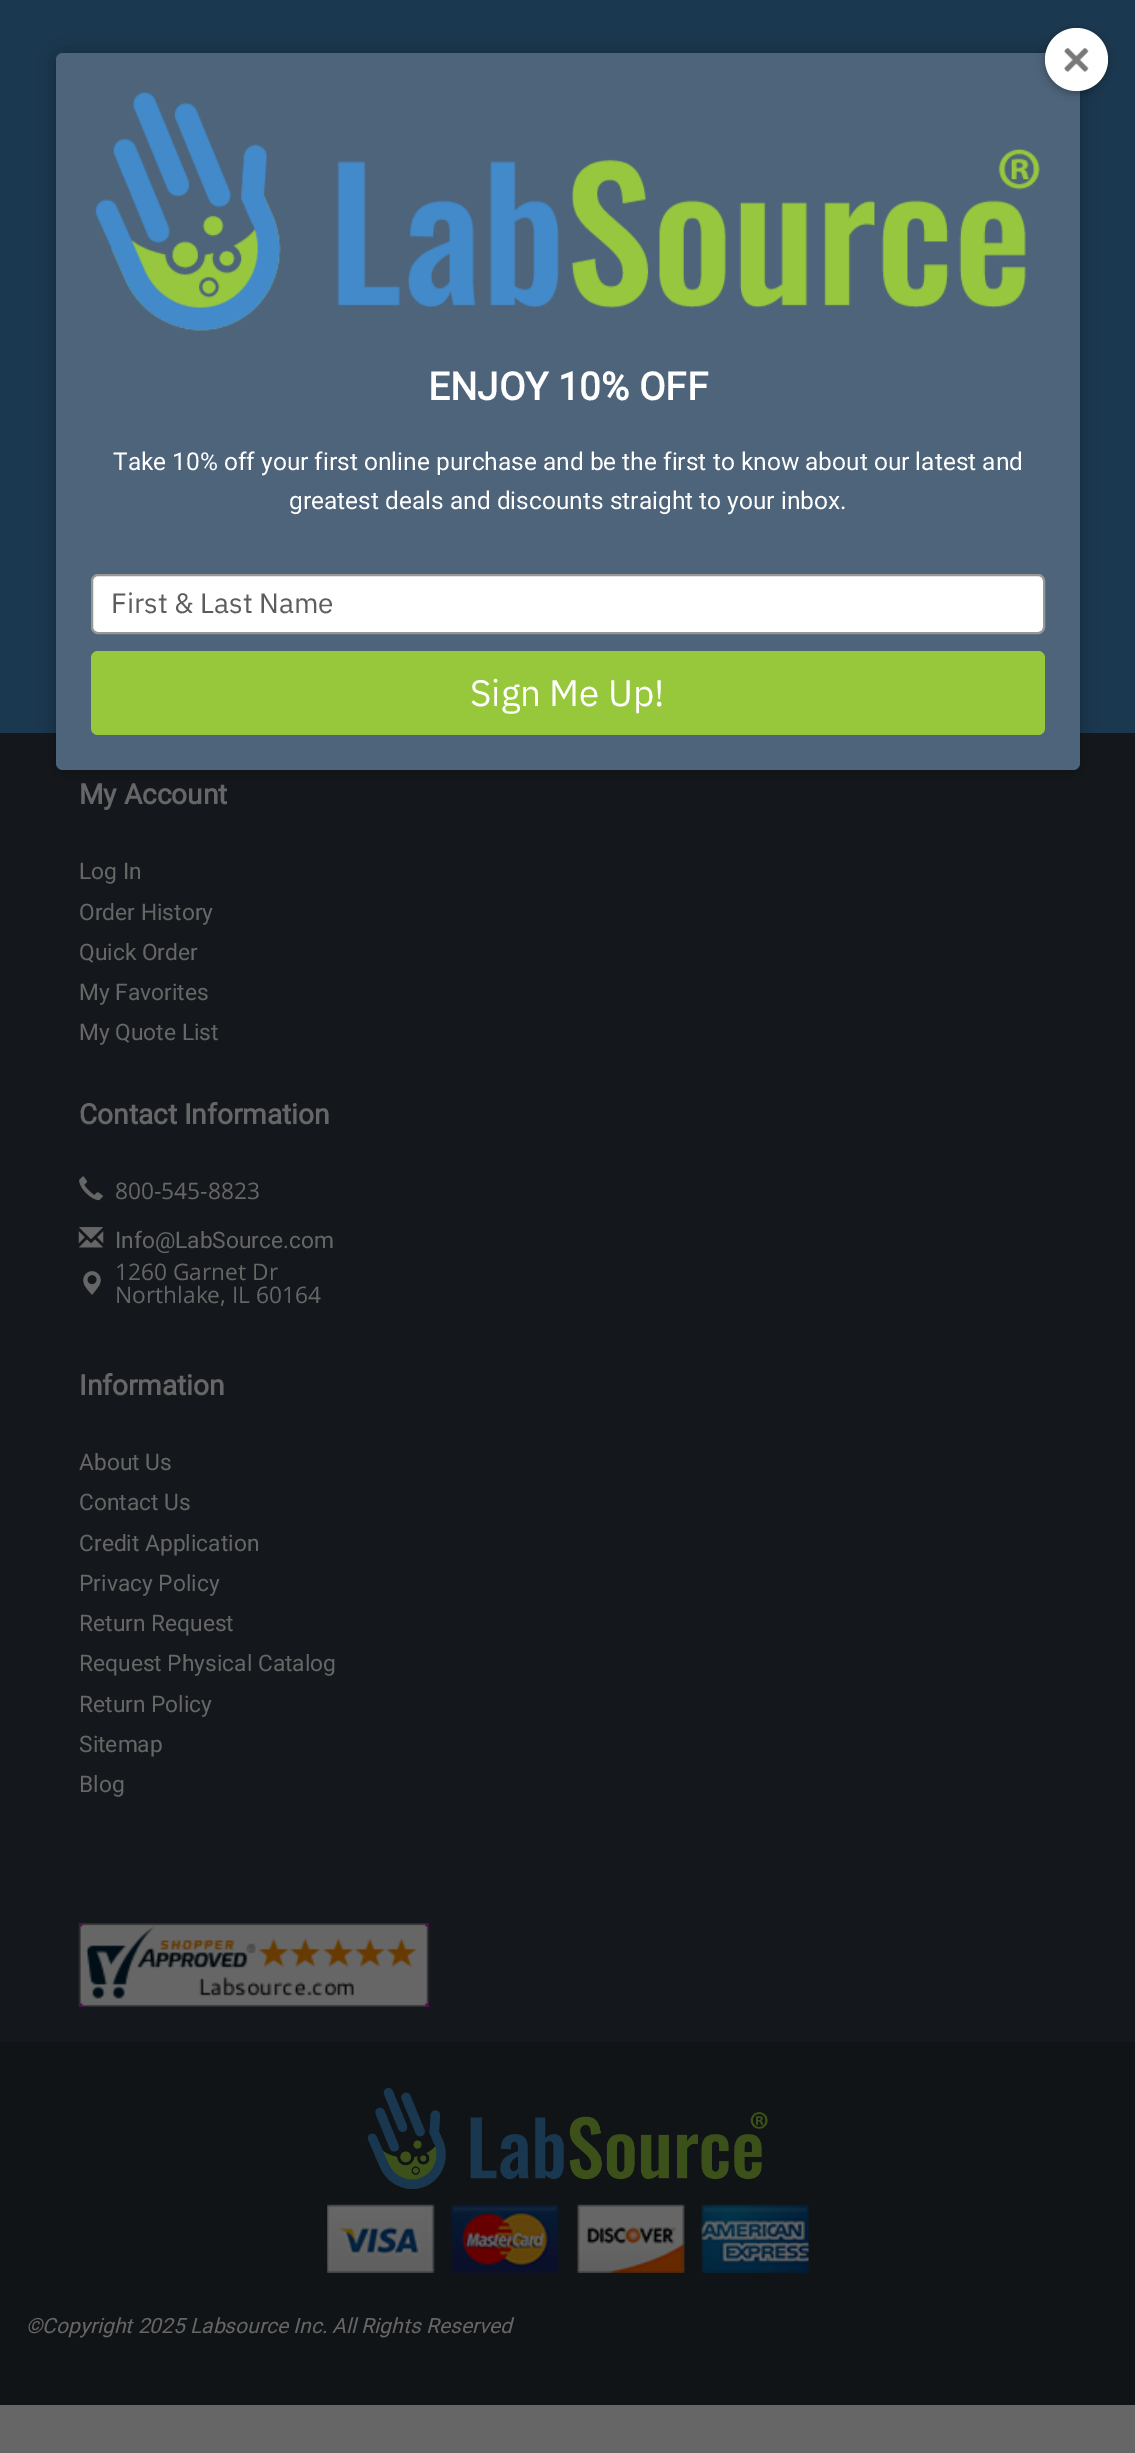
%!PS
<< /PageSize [1135 2453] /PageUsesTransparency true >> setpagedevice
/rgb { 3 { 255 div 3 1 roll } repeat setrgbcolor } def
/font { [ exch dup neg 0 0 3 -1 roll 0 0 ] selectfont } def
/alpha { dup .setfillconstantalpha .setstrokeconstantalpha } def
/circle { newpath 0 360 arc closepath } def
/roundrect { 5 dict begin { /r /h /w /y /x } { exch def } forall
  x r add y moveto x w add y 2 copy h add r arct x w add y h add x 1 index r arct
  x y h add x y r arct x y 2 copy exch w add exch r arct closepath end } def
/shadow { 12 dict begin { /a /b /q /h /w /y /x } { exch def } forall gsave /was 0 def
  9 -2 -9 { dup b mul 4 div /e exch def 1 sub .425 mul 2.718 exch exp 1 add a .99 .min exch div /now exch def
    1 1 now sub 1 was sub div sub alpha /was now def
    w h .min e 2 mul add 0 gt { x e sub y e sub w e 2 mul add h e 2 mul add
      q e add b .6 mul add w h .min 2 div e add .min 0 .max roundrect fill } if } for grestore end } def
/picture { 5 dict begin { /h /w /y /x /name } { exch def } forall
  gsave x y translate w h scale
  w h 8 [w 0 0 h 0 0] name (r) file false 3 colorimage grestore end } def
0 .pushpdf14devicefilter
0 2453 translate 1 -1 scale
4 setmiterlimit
102 102 102 rgb
0 0 1135 2453 rectfill
27 56 81 rgb
0 0 1135 733 rectfill
20 24 28 rgb
0 733 1135 1309 rectfill
0 0 0 rgb
56 54 1024 718 7 11.5 0.3 shadow
78 100 122 rgb
56 53 1024 717 7 roundrect fill
(img/2.rgb) 94 92 946 239 picture
0 0 0 rgb
1045 30 63 63 31.5 4.5 0.3 shadow
255 255 255 rgb
1076.5 59.5 31.5 circle fill
(img/1.rgb) 1063 48 26 24 picture
92 575 952 58 6 roundrect gsave fill grestore
151 151 151 rgb
2 setlinewidth
stroke
151 200 60 rgb
91 651 954 84 7 roundrect fill
(img/3.rgb) 79 1176 24 25 picture
(img/4.rgb) 78 1227 26 21 picture
(img/5.rgb) 83 1271 18 24 picture
(img/6.rgb) 78 1923 351 84 picture
17 20 23 rgb
0 2042 1135 363 rectfill
(img/7.rgb) 367 2088 401 101 picture
(img/8.rgb) 327 2204 482 69 picture
/Roboto-Bold 38.5 font
255 255 255 rgb
428 400 moveto (ENJOY 10% OFF) show
/Roboto-Regular 24.5 font
113 470 moveto (Take 10% off your first online purchase and be the first to know about our latest and) show
289 509 moveto (greatest deals and discounts straight to your inbox.) show
/IBMPlexSans-Regular 28 font
93 93 93 rgb
111 613 moveto (First & Last Name) show
/IBMPlexSans-Regular 36.75 font
255 255 255 rgb
470 706 moveto (Sign Me Up!) show
/Roboto-Bold 28 font
102 102 102 rgb
79 804 moveto (My Account) show
/Roboto-Regular 22.75 font
[
  [(Log In) 79 879]
  [(Order History) 79 920]
  [(Quick Order) 79 960]
  [(My Favorites) 79 1000]
  [(My Quote List) 79 1040]
] { aload pop moveto show } forall
/Roboto-Bold 28 font
79 1124 moveto (Contact Information) show
/OpenSans-Regular 22.75 font
115 1199 moveto (800-545-8823) show
/Roboto-Regular 22.75 font
115 1248 moveto (Info@LabSource.com) show
/OpenSans-Regular 22.75 font
115 1280 moveto (1260 Garnet Dr) show
115 1303 moveto (Northlake, IL 60164) show
/Roboto-Bold 28 font
79 1395 moveto (Information) show
/Roboto-Regular 22.75 font
[
  [(About Us) 79 1470]
  [(Contact Us) 79 1510]
  [(Credit Application) 79 1551]
  [(Privacy Policy) 79 1591]
  [(Return Request) 79 1631]
  [(Request Physical Catalog) 79 1671]
  [(Return Policy) 79 1712]
  [(Sitemap) 79 1752]
  [(Blog) 79 1792]
] { aload pop moveto show } forall
/Roboto-Italic 21 font
26 2333 moveto (©Copyright 2025 Labsource Inc. All Rights Reserved) show
.poppdf14devicefilter showpage
